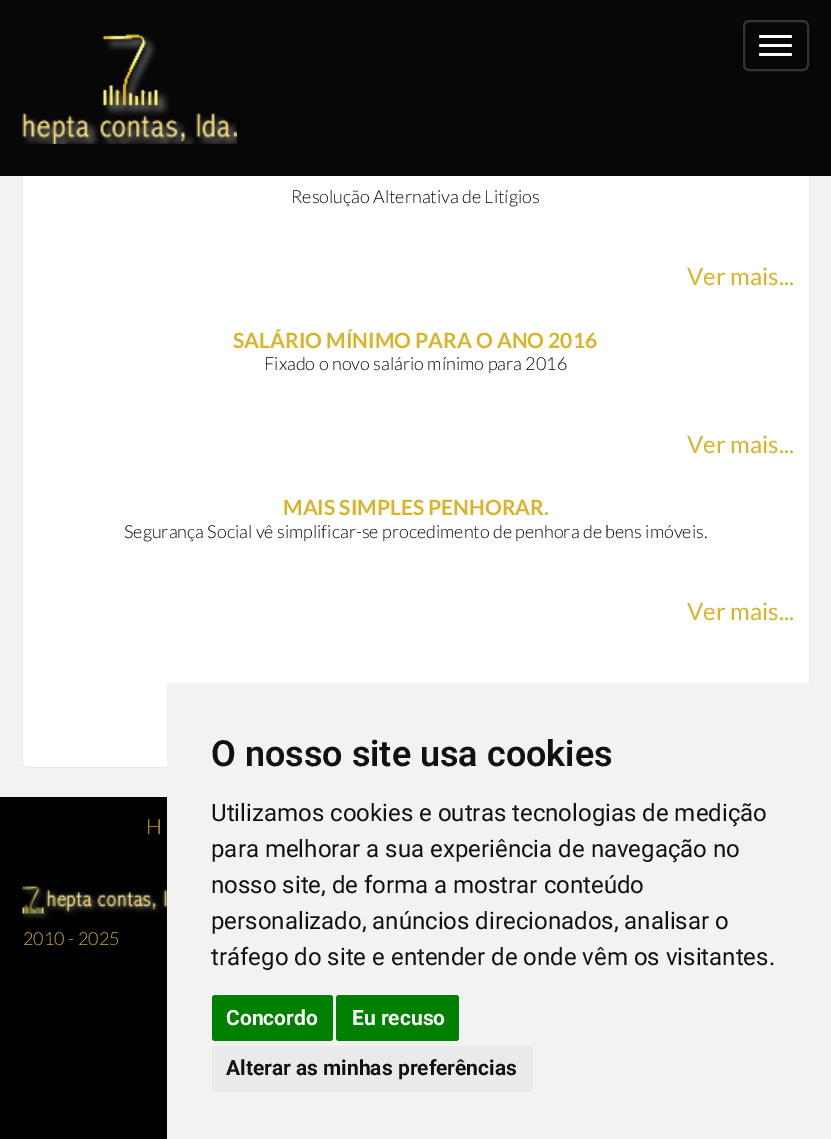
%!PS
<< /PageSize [831 1139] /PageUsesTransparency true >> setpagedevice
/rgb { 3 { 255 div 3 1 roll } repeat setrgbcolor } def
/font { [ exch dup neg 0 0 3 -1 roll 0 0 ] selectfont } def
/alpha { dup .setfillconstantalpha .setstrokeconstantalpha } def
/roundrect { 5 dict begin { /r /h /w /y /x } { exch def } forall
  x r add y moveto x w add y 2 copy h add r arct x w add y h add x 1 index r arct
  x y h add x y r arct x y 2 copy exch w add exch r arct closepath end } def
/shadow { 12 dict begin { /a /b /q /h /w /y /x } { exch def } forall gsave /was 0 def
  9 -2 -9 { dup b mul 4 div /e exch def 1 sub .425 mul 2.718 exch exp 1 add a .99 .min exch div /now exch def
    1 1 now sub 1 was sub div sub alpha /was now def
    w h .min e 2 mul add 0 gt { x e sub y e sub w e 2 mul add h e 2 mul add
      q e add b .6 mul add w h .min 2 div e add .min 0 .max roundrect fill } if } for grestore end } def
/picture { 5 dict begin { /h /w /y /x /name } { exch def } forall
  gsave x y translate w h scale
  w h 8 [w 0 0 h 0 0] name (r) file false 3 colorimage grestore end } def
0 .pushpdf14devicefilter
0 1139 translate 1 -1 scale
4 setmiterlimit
242 242 242 rgb
0 0 831 1139 rectfill
0 0 0 rgb
23 147 786 621 6 1 0.05 shadow
255 255 255 rgb
23 146 786 621 6 roundrect fill
[
  [0 0 831 174 34 34 34]
] { aload pop rgb rectfill } forall
0.8 alpha
[
  [0 0 831 174 0 0 0]
] { aload pop rgb rectfill } forall
1 alpha
[
  [0 174 831 2 8 8 8]
] { aload pop rgb rectfill } forall
(img/1.rgb) 22 34 215 110 picture
51 51 51 rgb
2 setlinewidth
744 21 64 49 5 roundrect stroke
255 255 255 rgb
759 35 33 3 1.5 roundrect fill
759 44 33 3 1.5 roundrect fill
759 53 33 3 1.5 roundrect fill
0 0 0 rgb
0 797 167 342 rectfill
(img/2.rgb) 22 886 145 34 picture
242 242 242 rgb
167 683 643 86 rectfill
0 128 0 rgb
212 995 121 46 3 roundrect fill
336 995 123 46 3 roundrect fill
234 234 234 rgb
212 1046 321 46 3 roundrect fill
/Lato-Light 18 font
0 0 0 rgb
291 203 moveto (Resolução Alternativa de Litígios) show
/Lato-Regular 24 font
215 180 41 rgb
687 285 moveto (Ver mais...) show
/Lato-Bold 21 font
233 348 moveto (SALÁRIO MÍNIMO PARA O ANO 2016) show
/Lato-Light 18 font
0 0 0 rgb
264 370 moveto (Fixado o novo salário mínimo para 2016) show
/Lato-Regular 24 font
215 180 41 rgb
687 453 moveto (Ver mais...) show
/Lato-Bold 21 font
283 515 moveto (MAIS SIMPLES PENHORAR.) show
/Lato-Light 18 font
0 0 0 rgb
124 538 moveto (Segurança Social vê simplificar-se procedimento de penhora de bens imóveis.) show
/Lato-Regular 24 font
215 180 41 rgb
687 620 moveto (Ver mais...) show
/Lato-Light 21 font
146 834 moveto (H) show
/Lato-Light 18 font
23 945 moveto (2010 - 2025) show
/Roboto-SemiBold 36 font
17 17 17 rgb
211 766 moveto (O nosso site usa cookies) show
/Roboto-Regular 24 font
[
  [(Utilizamos cookies e outras tecnologias de medição) 211 821]
  [(para melhorar a sua experiência de navegação no) 211 857]
  [(nosso site, de forma a mostrar conteúdo) 211 893]
  [(personalizado, anúncios direcionados, analisar o) 211 929]
  [(tráfego do site e entender de onde vêm os visitantes.) 211 965]
] { aload pop moveto show } forall
/Roboto-Bold 21 font
255 255 255 rgb
226 1025 moveto (Concordo) show
352 1025 moveto (Eu recuso) show
17 17 17 rgb
226 1075 moveto (Alterar as minhas preferências) show
.poppdf14devicefilter showpage
